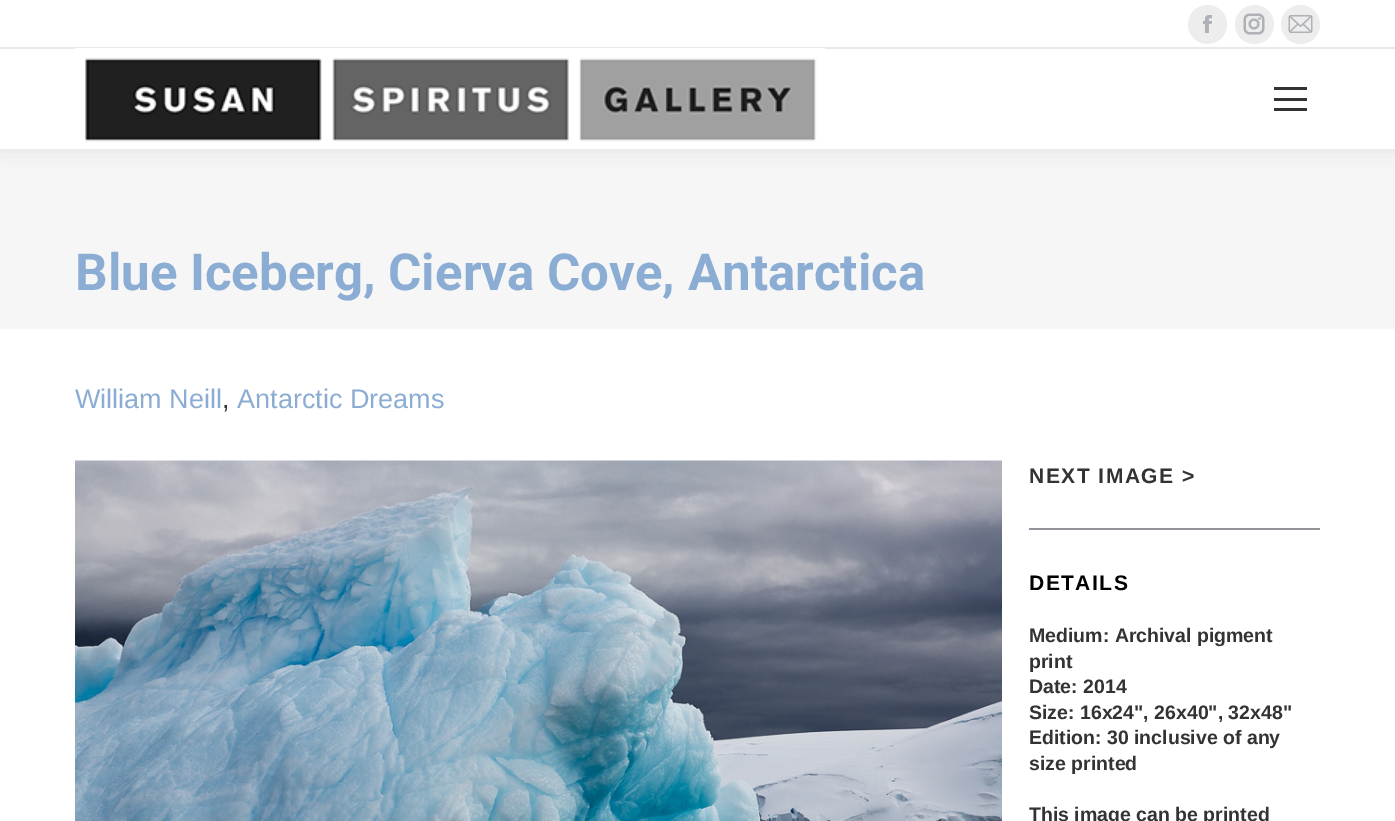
%!PS
<< /PageSize [1395 821] /PageUsesTransparency true >> setpagedevice
/rgb { 3 { 255 div 3 1 roll } repeat setrgbcolor } def
/font { [ exch dup neg 0 0 3 -1 roll 0 0 ] selectfont } def
/alpha { dup .setfillconstantalpha .setstrokeconstantalpha } def
/circle { newpath 0 360 arc closepath } def
/roundrect { 5 dict begin { /r /h /w /y /x } { exch def } forall
  x r add y moveto x w add y 2 copy h add r arct x w add y h add x 1 index r arct
  x y h add x y r arct x y 2 copy exch w add exch r arct closepath end } def
/shadow { 12 dict begin { /a /b /q /h /w /y /x } { exch def } forall gsave /was 0 def
  9 -2 -9 { dup b mul 4 div /e exch def 1 sub .425 mul 2.718 exch exp 1 add a .99 .min exch div /now exch def
    1 1 now sub 1 was sub div sub alpha /was now def
    w h .min e 2 mul add 0 gt { x e sub y e sub w e 2 mul add h e 2 mul add
      q e add b .6 mul add w h .min 2 div e add .min 0 .max roundrect fill } if } for grestore end } def
/picture { 5 dict begin { /h /w /y /x /name } { exch def } forall
  gsave x y translate w h scale
  w h 8 [w 0 0 h 0 0] name (r) file false 3 colorimage grestore end } def
0 .pushpdf14devicefilter
0 821 translate 1 -1 scale
4 setmiterlimit
255 255 255 rgb
0 0 1395 821 rectfill
246 246 246 rgb
0 149 1395 180 rectfill
0 0 0 rgb
-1 -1 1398 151 0 11 0.07 shadow
255 255 255 rgb
0 0 1395 149 rectfill
237 237 237 rgb
1207.5 24.5 19.5 circle fill
(img/1.rgb) 1203 15 9 18 picture
1254.5 24.5 19.5 circle fill
(img/2.rgb) 1243 13 22 22 picture
1300.5 24.5 19.5 circle fill
(img/3.rgb) 1288 15 25 18 picture
233 233 233 rgb
0 47 1395 2 rectfill
(img/4.rgb) 75 48 750 94 picture
[
  [1274 87 33 3 51 51 51]
  [1274 98 33 3 51 51 51]
  [1274 108 33 3 51 51 51]
] { aload pop rgb rectfill } forall
(img/5.rgb) 75 460 927 361 picture
145 148 155 rgb
1029 528 291 2 rectfill
/Roboto-Bold 51 font
140 173 211 rgb
75 290 moveto (Blue Iceberg, Cierva Cove, Antarctica) show
/LiberationSans-Regular 27 font
75 408 moveto (William Neill) show
51 51 51 rgb
222 408 moveto (,) show
140 173 211 rgb
237 408 moveto (Antarctic Dreams) show
/LiberationSans-Bold 21 font
51 51 51 rgb
1029 483 moveto 1.5 0 (NEXT IMAGE >) ashow
0 0 0 rgb
1029 590 moveto 1.5 0 (DETAILS) ashow
/LiberationSans-Bold 19.5 font
51 51 51 rgb
[
  [(Medium: Archival pigment) 1029 642]
  [(print) 1029 668]
  [(Date: 2014) 1029 693]
  [(Size: 16x24", 26x40", 32x48") 1029 719]
  [(Edition: 30 inclusive of any) 1029 744]
  [(size printed) 1029 770]
  [(This image can be printed) 1029 821]
] { aload pop moveto show } forall
.poppdf14devicefilter showpage
